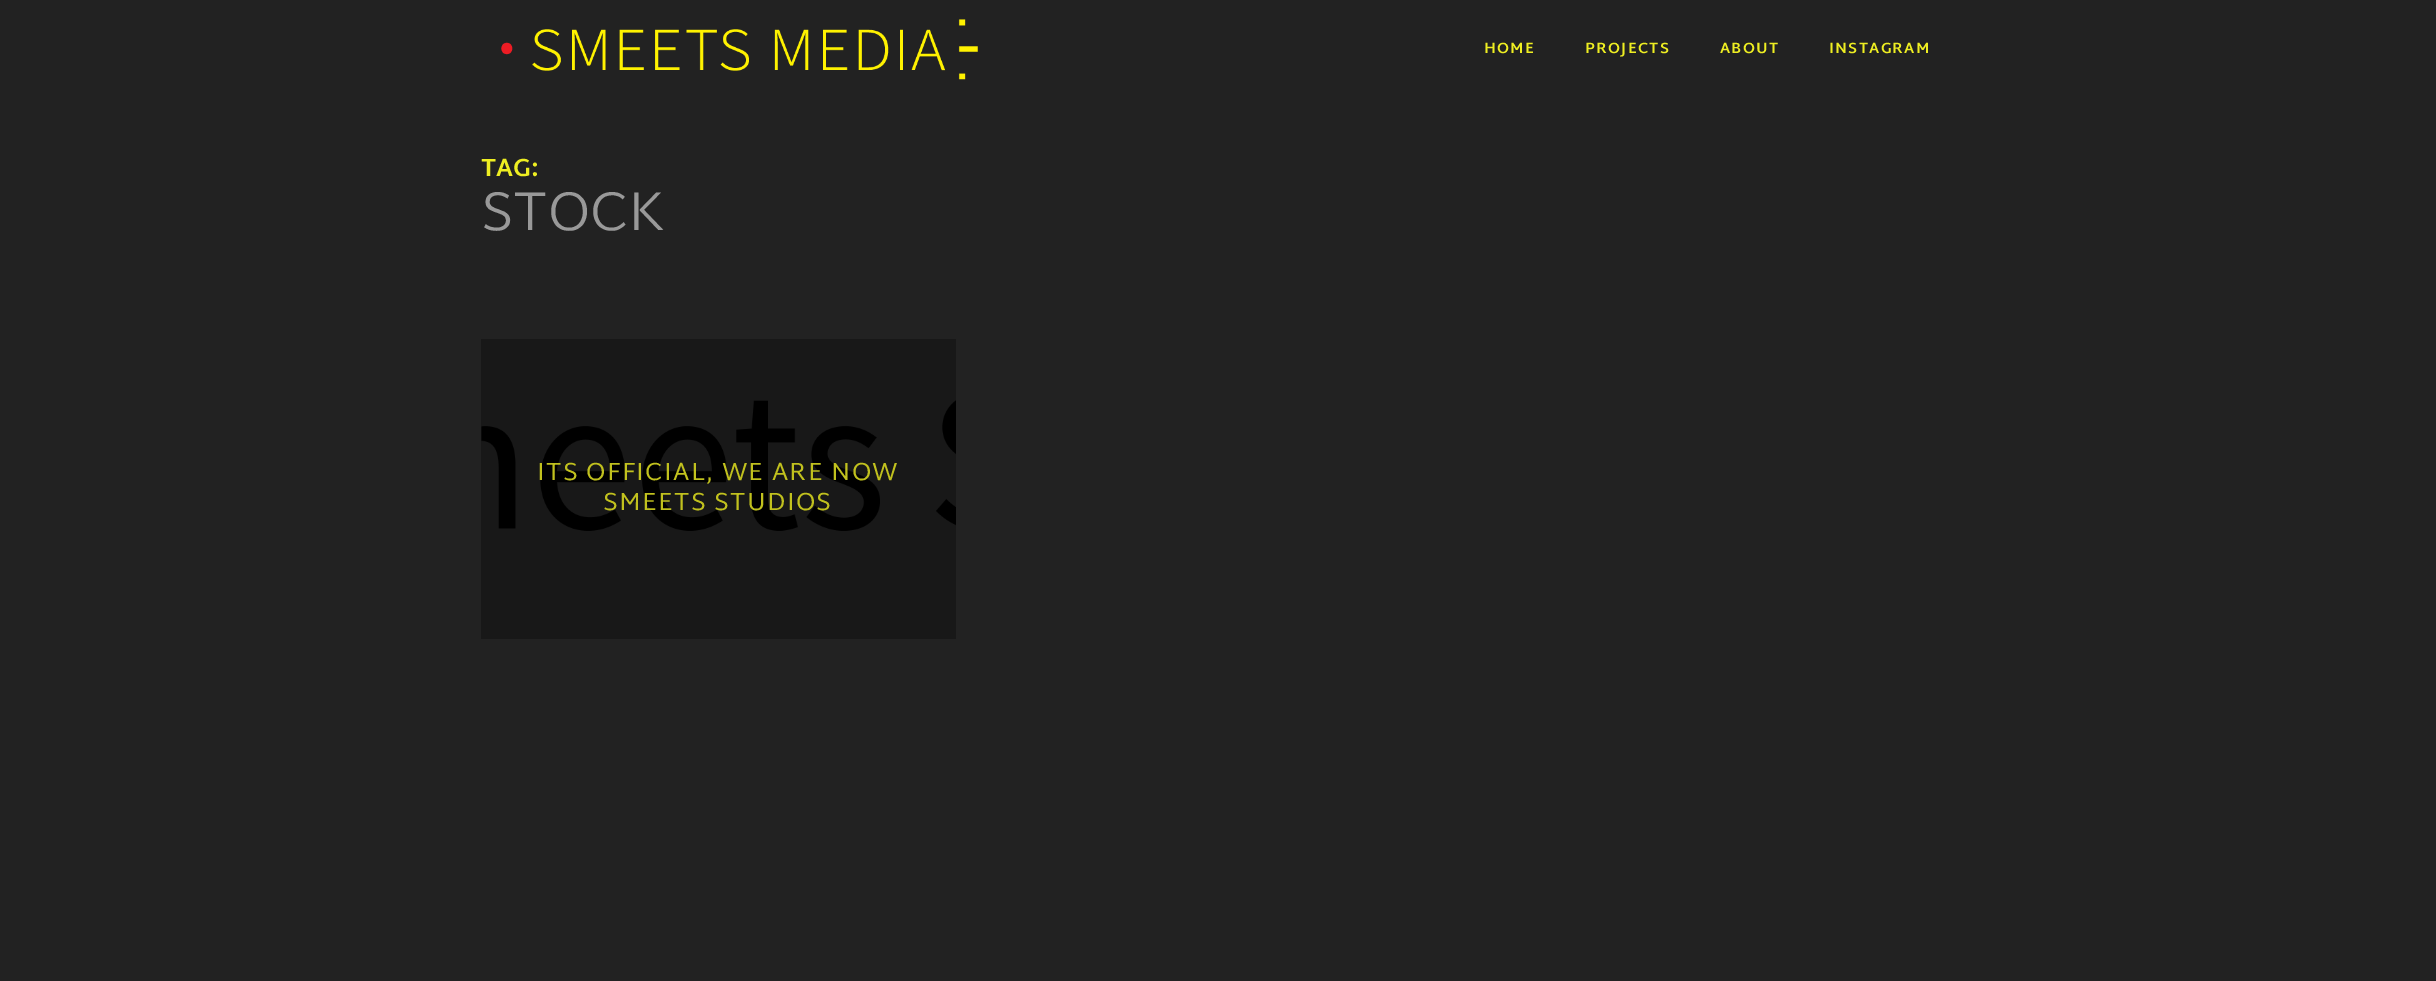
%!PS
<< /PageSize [2436 981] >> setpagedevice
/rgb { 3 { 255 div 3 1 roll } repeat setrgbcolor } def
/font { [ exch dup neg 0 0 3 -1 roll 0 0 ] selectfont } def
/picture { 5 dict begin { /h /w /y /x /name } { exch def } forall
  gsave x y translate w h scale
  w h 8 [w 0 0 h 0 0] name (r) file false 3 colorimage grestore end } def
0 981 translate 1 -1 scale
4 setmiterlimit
34 34 34 rgb
0 0 2436 981 rectfill
24 24 24 rgb
481 339 475 300 rectfill
(img/1.rgb) 501 19 477 61 picture
(img/2.rgb) 481 400 475 131 picture
/MartelSans-Bold 15 font
238 238 34 rgb
1484 53 moveto 1.25 0 (HOME) ashow
1585 53 moveto 1.25 0 (PROJECTS) ashow
1720 53 moveto 1.25 0 (ABOUT) ashow
1829 53 moveto 1.25 0 (INSTAGRAM) ashow
/MartelSans-Bold 25 font
481 176 moveto (TAG:) show
/MartelSans-Light 55 font
153 153 153 rgb
481 230 moveto (STOCK) show
/MartelSans-Regular 25 font
193 193 30 rgb
537 480 moveto 1.25 0 (ITS OFFICIAL, WE ARE NOW) ashow
603 510 moveto 1.25 0 (SMEETS STUDIOS) ashow
showpage
